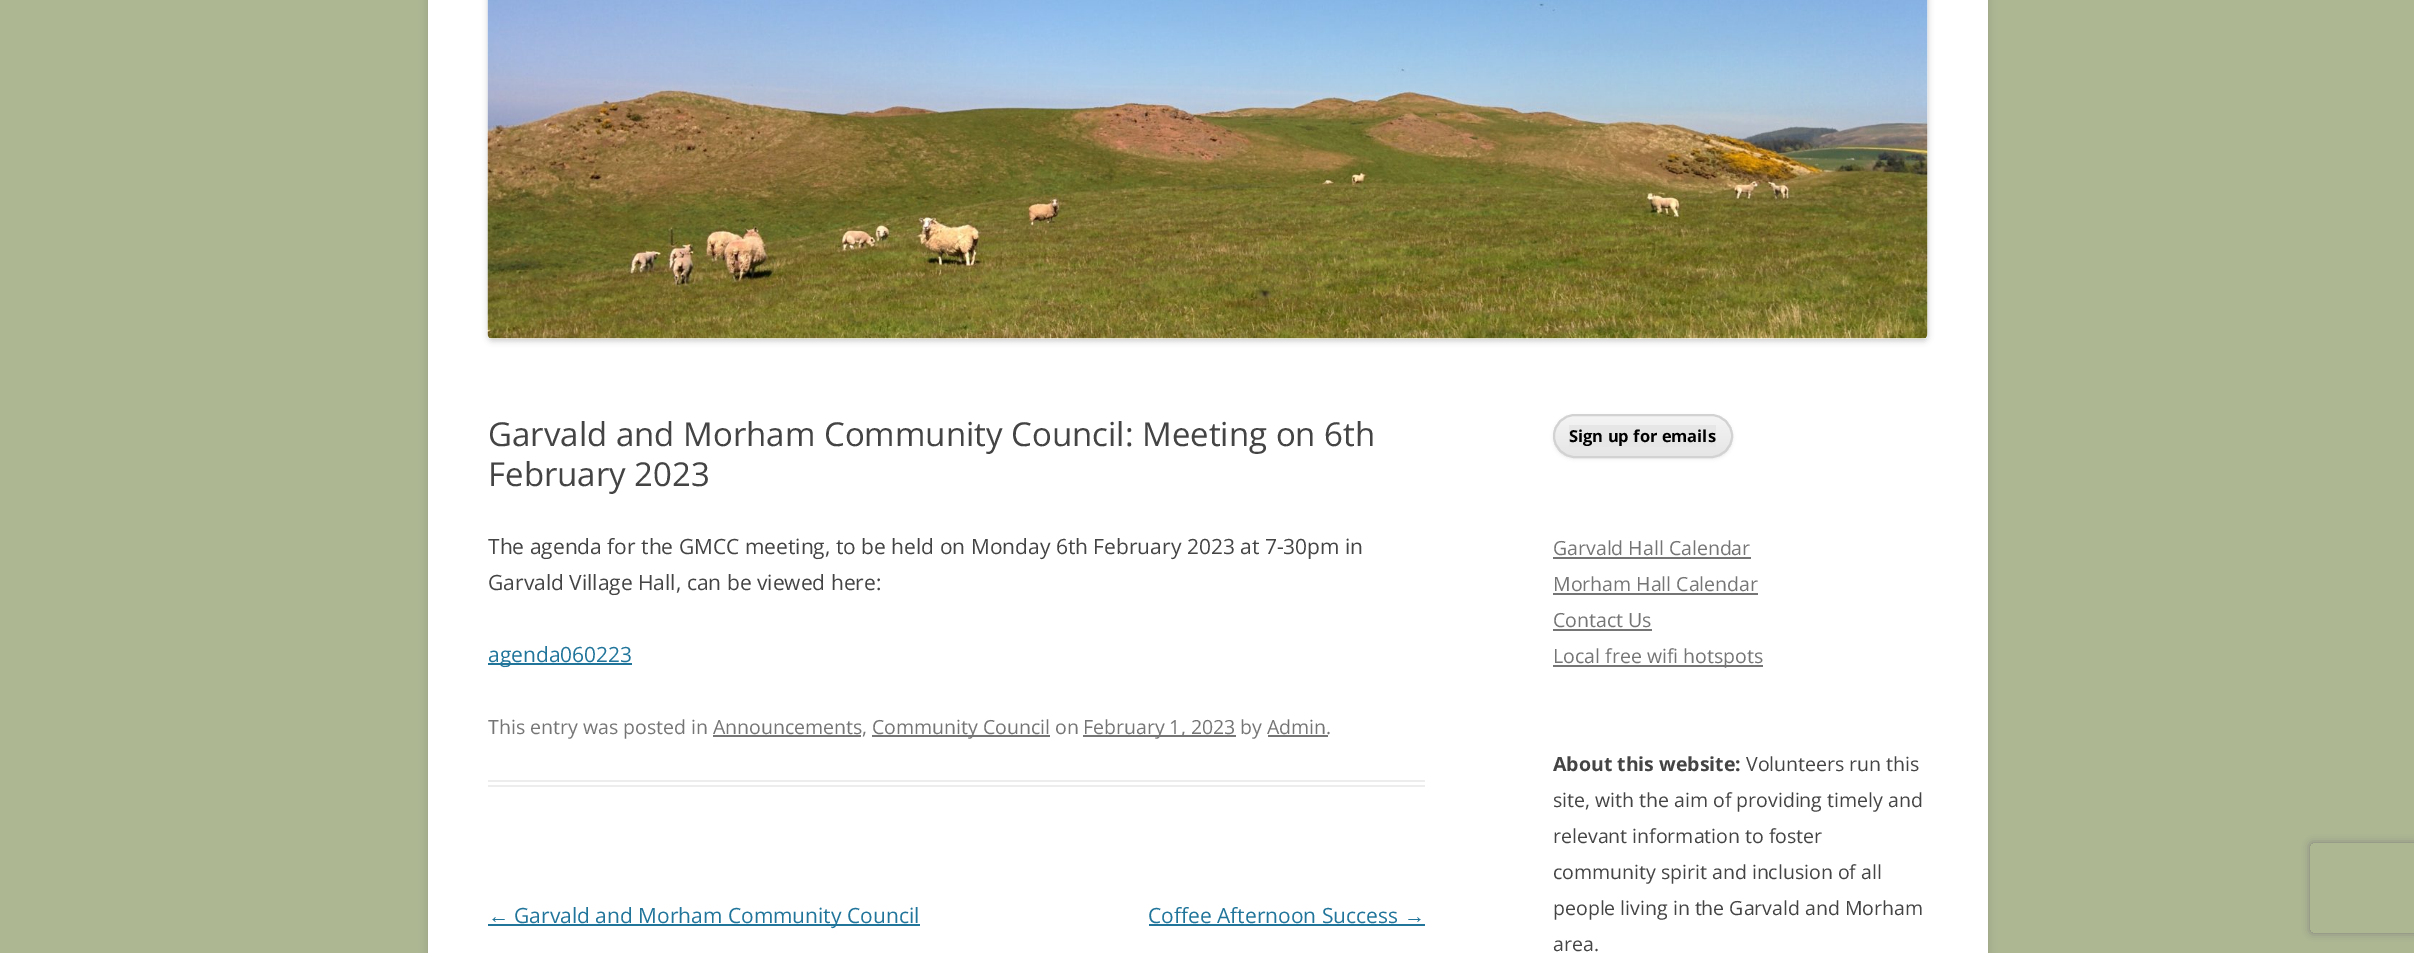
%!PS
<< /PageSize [2414 953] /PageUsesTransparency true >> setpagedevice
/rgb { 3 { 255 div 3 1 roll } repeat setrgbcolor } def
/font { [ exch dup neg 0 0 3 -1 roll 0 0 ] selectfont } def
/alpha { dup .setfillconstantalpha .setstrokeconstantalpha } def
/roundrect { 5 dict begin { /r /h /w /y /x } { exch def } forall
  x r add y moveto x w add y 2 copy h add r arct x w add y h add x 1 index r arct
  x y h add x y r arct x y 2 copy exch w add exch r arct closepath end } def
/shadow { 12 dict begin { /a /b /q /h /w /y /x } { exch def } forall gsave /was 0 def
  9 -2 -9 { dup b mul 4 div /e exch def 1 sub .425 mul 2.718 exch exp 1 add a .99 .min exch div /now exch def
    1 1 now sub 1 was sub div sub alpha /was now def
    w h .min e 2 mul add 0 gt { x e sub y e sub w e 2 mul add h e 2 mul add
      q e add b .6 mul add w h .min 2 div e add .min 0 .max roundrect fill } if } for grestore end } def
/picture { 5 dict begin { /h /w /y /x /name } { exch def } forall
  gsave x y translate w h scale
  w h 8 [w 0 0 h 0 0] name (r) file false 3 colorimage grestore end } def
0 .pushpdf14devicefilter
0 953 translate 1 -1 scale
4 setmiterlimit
173 183 146 rgb
0 0 2414 953 rectfill
100 100 100 rgb
428 -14 1560 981 0 4.5 0.3 shadow
255 255 255 rgb
428 0 1560 953 rectfill
0 0 0 rgb
488 -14 1440 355 5 3 0.2 shadow
(img/1.rgb) 487 0 1441 339 picture
[
  [488 780 937 2 237 237 237]
  [488 785 937 2 237 237 237]
  [488 663 144 2 33 117 155]
  [872 735 178 2 117 117 117]
  [1083 735 153 2 117 117 117]
  [713 735 148 2 117 117 117]
  [1268 735 60 2 117 117 117]
  [488 924 432 2 33 117 155]
  [1149 924 276 2 33 117 155]
] { aload pop rgb rectfill } forall
64 64 64 rgb
1553 416 180 43 21.5 1.5 0.1 shadow
gsave
1553 414 180 44 22 roundrect clip newpath
gsave 1553 416 moveto 1733 416 lineto 1733 456 lineto 1553 456 lineto closepath clip newpath
<< /ShadingType 2 /ColorSpace /DeviceRGB /Coords [1643 416 1643 456] /Extend [true true] /Function << /FunctionType 2 /Domain [0 1] /C0 [0.957 0.957 0.957] /C1 [0.902 0.902 0.902] /N 1 >> >> shfill grestore
grestore
210 210 210 rgb
2 setlinewidth
1554 415 178 42 21 roundrect stroke
[
  [1569 425 147 22 230 230 230]
  [1553 557 198 2 117 117 117]
  [1553 593 205 2 117 117 117]
  [1553 629 99 2 117 117 117]
  [1553 665 210 2 117 117 117]
] { aload pop rgb rectfill } forall
gsave
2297 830 moveto 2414 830 lineto 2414 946 lineto 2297 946 lineto closepath 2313 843 moveto 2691 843 lineto 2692.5 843 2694 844.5 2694 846 curveto 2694 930 lineto 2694 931.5 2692.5 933 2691 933 curveto 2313 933 lineto 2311.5 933 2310 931.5 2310 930 curveto 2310 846 lineto 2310 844.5 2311.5 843 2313 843 curveto closepath eoclip newpath
128 128 128 rgb
2310 843 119 90 3 4 1 shadow
grestore
/OpenSans-Regular 33 font
68 68 68 rgb
488 446 moveto (Garvald and Morham Community Council: Meeting on 6th) show
488 486 moveto (February 2023) show
/OpenSans-Regular 21 font
488 554 moveto (The agenda for the GMCC meeting, to be held on Monday 6th February 2023 at 7-30pm in) show
488 590 moveto (Garvald Village Hall, can be viewed here:) show
33 117 155 rgb
488 662 moveto (agenda060223) show
/OpenSans-Regular 19.5 font
117 117 117 rgb
[
  [(This entry was posted in Announcements,) 488 734]
  [(Community Council on) 872 734]
  [(February 1, 2023 by Admin.) 1083 734]
] { aload pop moveto show } forall
/LiberationSans-Regular 21 font
33 117 155 rgb
488 923 moveto (←) show
/OpenSans-Regular 21 font
514 923 moveto (Garvald and Morham Community Council) show
1148 923 moveto (Coffee Afternoon Success) show
/LiberationSans-Regular 21 font
1404 923 moveto (→) show
/OpenSans-Bold 16.5 font
0 0 0 rgb
1569 442 moveto (Sign up for emails) show
/OpenSans-Regular 19.5 font
117 117 117 rgb
[
  [(Garvald Hall Calendar) 1553 555]
  [(Morham Hall Calendar) 1553 591]
  [(Contact Us) 1553 627]
  [(Local free wifi hotspots) 1553 663]
] { aload pop moveto show } forall
/OpenSans-Bold 19.5 font
68 68 68 rgb
1553 771 moveto (About this website:) show
/OpenSans-Regular 19.5 font
[
  [(Volunteers run this) 1746 771]
  [(site, with the aim of providing timely and) 1553 807]
  [(relevant information to foster) 1553 843]
  [(community spirit and inclusion of all) 1553 879]
  [(people living in the Garvald and Morham) 1553 915]
  [(area.) 1553 951]
] { aload pop moveto show } forall
.poppdf14devicefilter showpage
